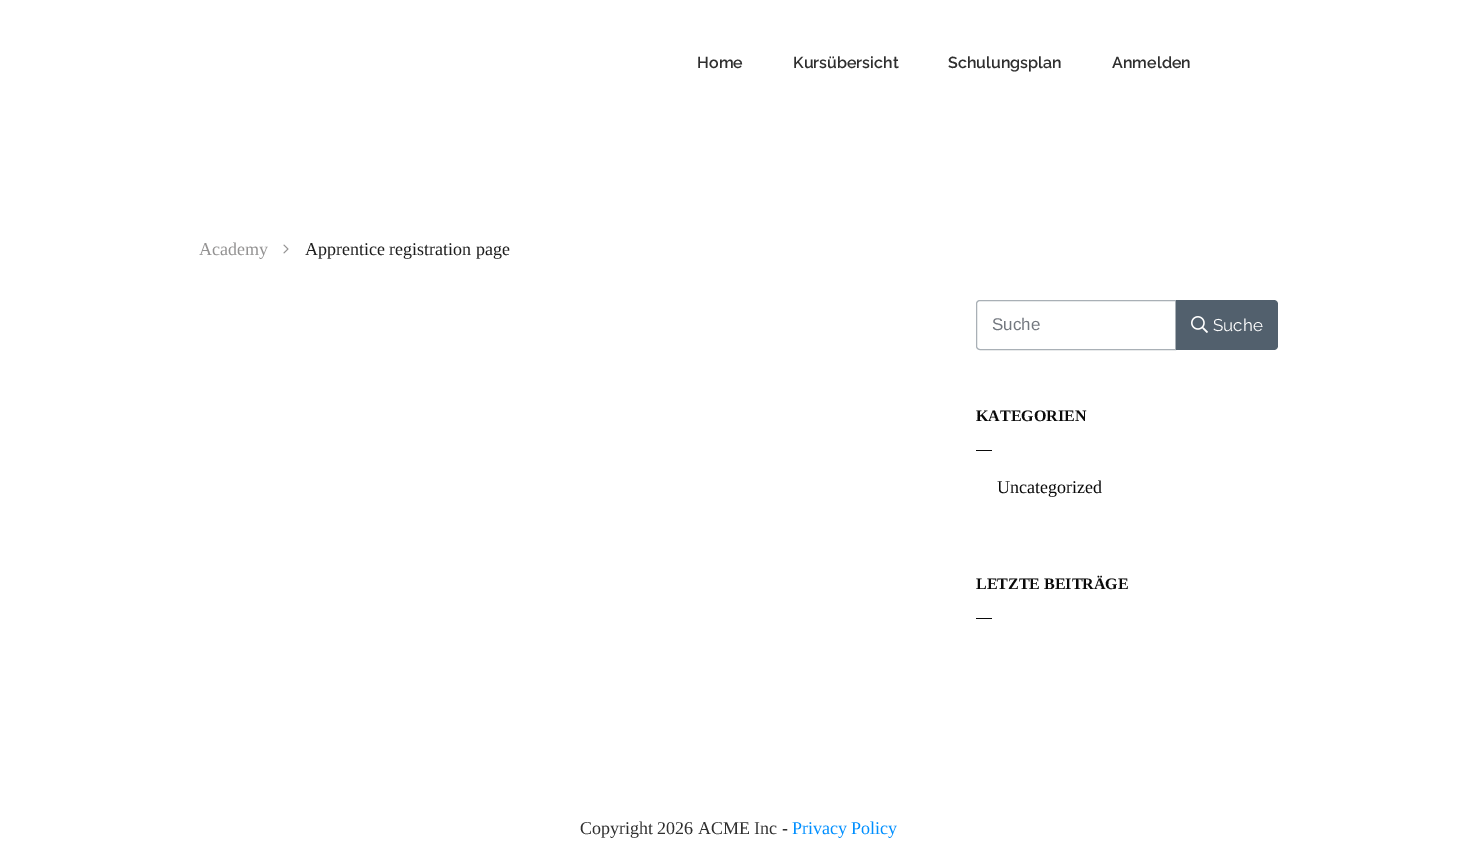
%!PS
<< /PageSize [1477 855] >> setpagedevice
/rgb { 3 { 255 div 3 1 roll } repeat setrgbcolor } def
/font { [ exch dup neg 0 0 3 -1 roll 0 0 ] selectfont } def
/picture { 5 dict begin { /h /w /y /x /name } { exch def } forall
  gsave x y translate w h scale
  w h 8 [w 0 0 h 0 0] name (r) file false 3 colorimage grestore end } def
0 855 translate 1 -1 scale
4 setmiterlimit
255 255 255 rgb
0 0 1477 855 rectfill
(img/1.rgb) 283 244 6 10 picture
169 176 182 rgb
980 300.5 moveto 1175.5 300.5 lineto 1175.5 349.5 lineto 980 349.5 lineto 978 349.5 976.5 348 976.5 346 curveto 976.5 304 lineto 976.5 302 978 300.5 980 300.5 curveto closepath stroke
82 96 109 rgb
1176 300 moveto 1274 300 lineto 1276 300 1278 302 1278 304 curveto 1278 346 lineto 1278 348 1276 350 1274 350 curveto 1176 350 lineto closepath fill
(img/2.rgb) 1191 316 17 17 picture
10 10 10 rgb
976 450 16 1 rectfill
976 618 16 1 rectfill
/Raleway-SemiBold 16 font
47 47 47 rgb
[
  [(Home) 697 68]
  [(Kursübersicht) 793 68]
  [(Schulungsplan) 948 68]
  [(Anmelden) 1112 68]
] { aload pop moveto show } forall
/LiberationSerif-Regular 18 font
147 146 146 rgb
199 255 moveto (Academy) show
29 29 29 rgb
305 255 moveto (Apprentice registration page) show
/LiberationSans-Regular 17 font
115 120 127 rgb
992 330 moveto (Suche) show
/Raleway-Regular 17 font
255 255 255 rgb
1213 331 moveto (Suche) show
/LiberationSerif-Bold 16 font
10 10 10 rgb
976 421 moveto (KATEGORIEN) show
/LiberationSerif-Regular 18 font
997 493 moveto (Uncategorized) show
/LiberationSerif-Bold 16 font
976 589 moveto (LETZTE BEITRÄGE) show
/LiberationSerif-Regular 18 font
47 47 47 rgb
580 834 moveto (Copyright 2026 ACME Inc -) show
0 143 255 rgb
792 834 moveto (Privacy Policy) show
showpage
